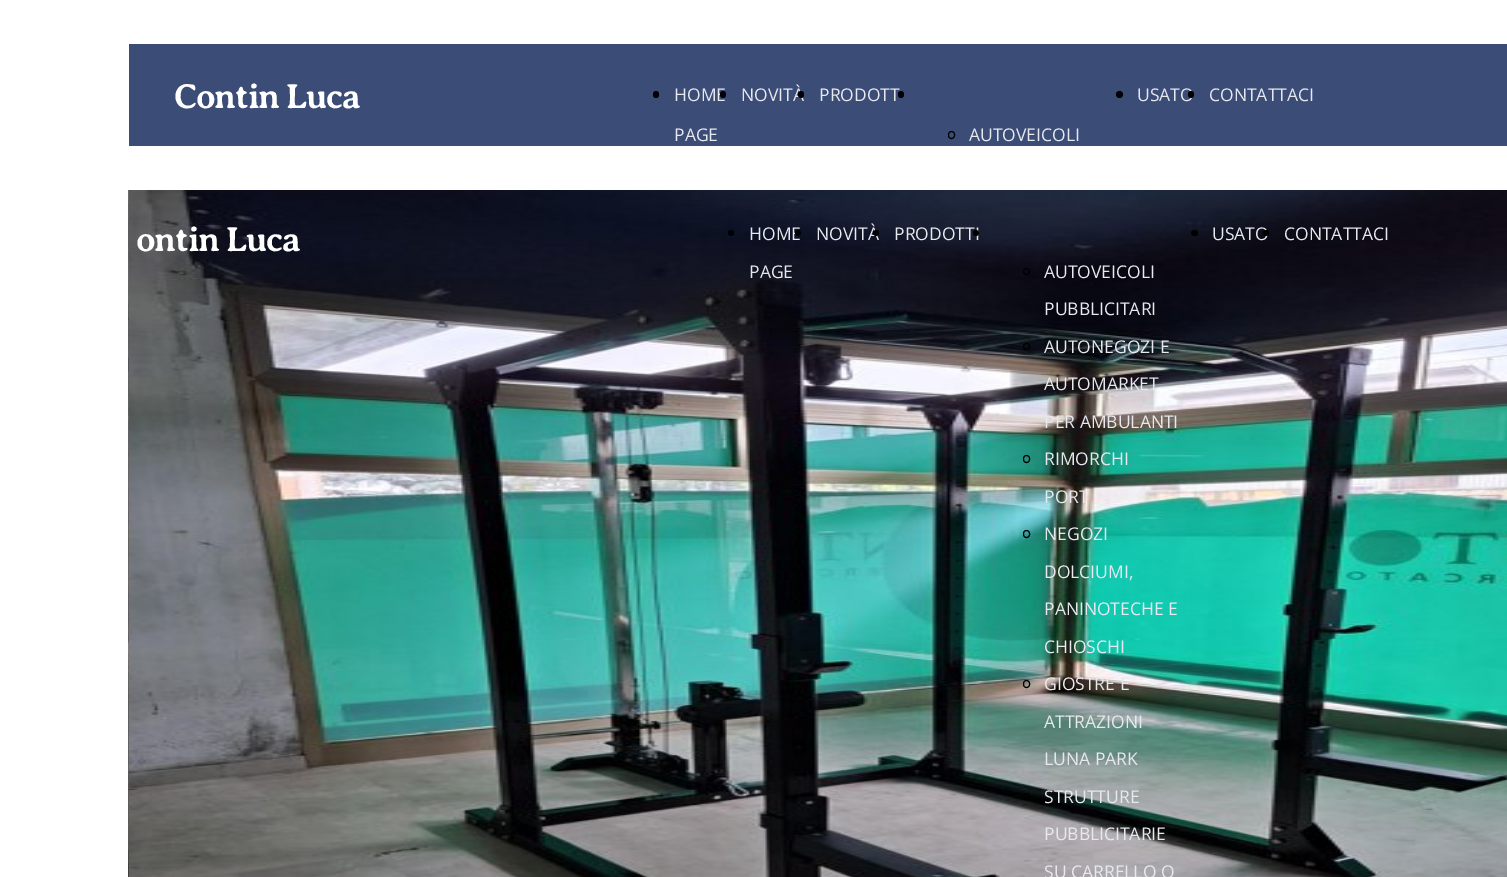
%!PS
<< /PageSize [1507 877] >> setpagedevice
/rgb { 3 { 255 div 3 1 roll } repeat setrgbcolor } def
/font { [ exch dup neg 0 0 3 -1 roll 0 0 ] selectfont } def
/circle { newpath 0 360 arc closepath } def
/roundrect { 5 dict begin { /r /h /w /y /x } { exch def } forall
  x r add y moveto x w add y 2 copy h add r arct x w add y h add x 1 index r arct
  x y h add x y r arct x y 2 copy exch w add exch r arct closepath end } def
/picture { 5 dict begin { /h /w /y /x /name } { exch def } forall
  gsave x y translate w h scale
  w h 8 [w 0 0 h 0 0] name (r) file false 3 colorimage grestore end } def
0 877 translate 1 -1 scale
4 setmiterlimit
255 255 255 rgb
0 0 1507 877 rectfill
59 76 119 rgb
129 44 1378 102 rectfill
0 0 0 rgb
653 91 6 7 3 roundrect fill
1119.5 94.5 3.5 circle fill
948.5 131.5 6 7 3 roundrect stroke
(img/1.rgb) 128 190 1 687 picture
(img/2.rgb) 128 190 1 687 picture
(img/3.rgb) 128 190 1 687 picture
(img/4.rgb) 128 190 1 687 picture
(img/5.rgb) 128 190 1 687 picture
(img/6.rgb) 128 190 1 687 picture
(img/7.rgb) 128 190 1 687 picture
(img/8.rgb) 128 190 1 687 picture
(img/9.rgb) 128 190 1 687 picture
(img/10.rgb) 128 190 1 687 picture
(img/11.rgb) 128 190 1 687 picture
(img/12.rgb) 128 190 1 687 picture
(img/13.rgb) 128 190 1 687 picture
(img/14.rgb) 128 190 1379 687 picture
731 233 3 circle fill
1191 230 7 6 3 roundrect fill
1026.5 271.5 3 circle stroke
1026.5 346.5 3 circle stroke
1023.5 455.5 6 7 3 roundrect stroke
1023.5 530.5 6 7 3 roundrect stroke
1023.5 680.5 6 7 3 roundrect stroke
1026.5 796.5 3 circle stroke
/AveriaSerifLibre-Bold 35 font
255 255 255 rgb
174 108 moveto -1.25 0 (Contin Luca) ashow
/OpenSans-Regular 17.5 font
231 233 238 rgb
674 101 moveto (HOME) show
674 141 moveto (PAGE) show
0 0 0 rgb
720 91 6 7 3 roundrect fill
231 233 238 rgb
741 101 moveto (NOVITÀ) show
0 0 0 rgb
798 91 6 7 3 roundrect fill
231 233 238 rgb
819 101 moveto (PRODOTT) show
1137 101 moveto (USATO) show
0 0 0 rgb
1188 91 6 7 3 roundrect fill
231 233 238 rgb
1209 101 moveto (CONTATTACI) show
0 0 0 rgb
898 91 6 7 3 roundrect fill
231 233 238 rgb
969 141 moveto (AUTOVEICOLI) show
/AveriaSerifLibre-Bold 35 font
255 255 255 rgb
136 251 moveto -1.25 0 (ontin Luca) ashow
/OpenSans-Regular 17.5 font
231 233 238 rgb
749 240 moveto (HOME) show
749 278 moveto (PAGE) show
0 0 0 rgb
798 233 3 circle fill
231 233 238 rgb
816 240 moveto (NOVITÀ) show
0 0 0 rgb
876 233 3 circle fill
231 233 238 rgb
894 240 moveto (PRODOTTI) show
1212 240 moveto (USATO) show
0 0 0 rgb
1266 233 3 circle fill
231 233 238 rgb
1284 240 moveto (CONTATTACI) show
0 0 0 rgb
976 233 3 circle fill
231 233 238 rgb
[
  [(AUTOVEICOLI) 1044 278]
  [(PUBBLICITARI) 1044 315]
  [(AUTONEGOZI E) 1044 353]
  [(AUTOMARKET) 1044 390]
  [(PER AMBULANTI) 1044 428]
  [(RIMORCHI) 1044 465]
  [(PORT) 1044 503]
  [(NEGOZI) 1044 540]
  [(DOLCIUMI,) 1044 578]
  [(PANINOTECHE E) 1044 615]
  [(CHIOSCHI) 1044 653]
  [(GIOSTRE E) 1044 690]
  [(ATTRAZIONI) 1044 728]
  [(LUNA PARK) 1044 765]
  [(STRUTTURE) 1044 803]
  [(PUBBLICITARIE) 1044 840]
  [(SU CARRELLO O) 1044 878]
] { aload pop moveto show } forall
showpage
